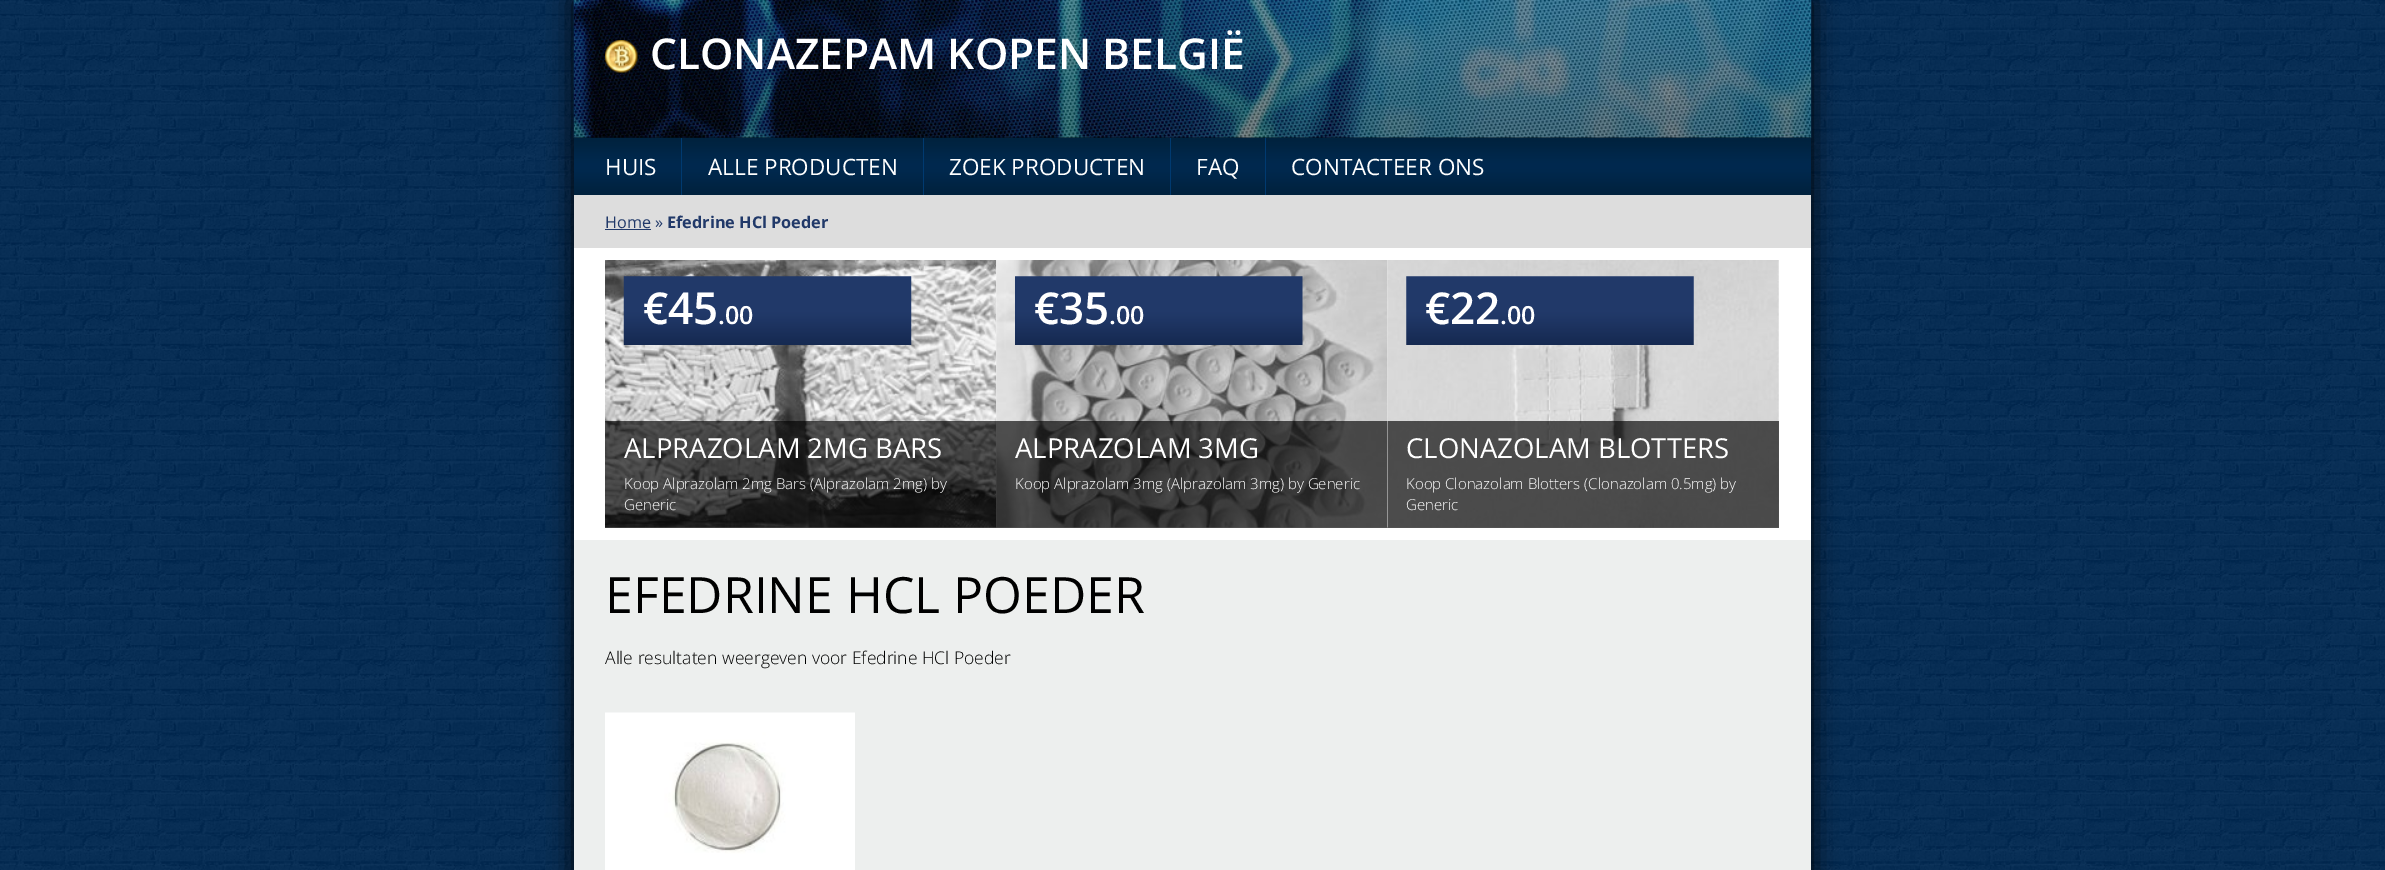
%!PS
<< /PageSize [2385 870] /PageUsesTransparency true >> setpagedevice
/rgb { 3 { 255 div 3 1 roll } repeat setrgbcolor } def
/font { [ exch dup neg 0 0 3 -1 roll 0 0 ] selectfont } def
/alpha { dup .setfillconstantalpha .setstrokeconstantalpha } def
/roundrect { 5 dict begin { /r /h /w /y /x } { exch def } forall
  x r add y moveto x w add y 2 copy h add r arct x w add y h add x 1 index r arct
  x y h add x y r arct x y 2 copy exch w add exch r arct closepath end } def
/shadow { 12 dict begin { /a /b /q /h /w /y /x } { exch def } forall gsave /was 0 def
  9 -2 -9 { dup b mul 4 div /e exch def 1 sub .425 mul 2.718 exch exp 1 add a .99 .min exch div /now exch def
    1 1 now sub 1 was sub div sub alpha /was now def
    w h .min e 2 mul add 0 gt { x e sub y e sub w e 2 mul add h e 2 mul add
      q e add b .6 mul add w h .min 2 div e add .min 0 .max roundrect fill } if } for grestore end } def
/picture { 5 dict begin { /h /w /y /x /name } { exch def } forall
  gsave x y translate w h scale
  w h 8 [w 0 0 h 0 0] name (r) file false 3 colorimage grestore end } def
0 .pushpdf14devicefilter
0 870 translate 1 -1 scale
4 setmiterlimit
255 255 255 rgb
0 0 2385 870 rectfill
(img/1.rgb) 0 0 2385 870 picture
0 0 0 rgb
574 0 1237 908 0 12.5 1 shadow
(img/4.rgb) 574 137 1237 58 picture
(img/2.rgb) 573 0 1239 138 picture
(img/3.rgb) 605 40 33 33 picture
[
  [681 138 1 57 0 58 112]
  [923 138 1 57 0 58 112]
  [1170 138 1 57 0 58 112]
  [1265 138 1 57 0 58 112]
  [574 195 1237 53 221 221 221]
  [605 229 46 1 33 57 105]
  [574 248 1237 292 255 255 255]
] { aload pop rgb rectfill } forall
(img/5.rgb) 605 260 392 268 picture
(img/6.rgb) 623 276 289 69 picture
0.65 alpha
0 0 0 rgb
605 421 391 107 rectfill
1 alpha
(img/7.rgb) 996 260 392 268 picture
(img/8.rgb) 1015 276 288 69 picture
0.65 alpha
996 421 392 107 rectfill
1 alpha
(img/9.rgb) 1387 260 392 268 picture
(img/10.rgb) 1406 276 288 69 picture
0.65 alpha
1388 421 391 107 rectfill
1 alpha
237 239 238 rgb
574 540 1237 330 rectfill
(img/11.rgb) 605 712 250 158 picture
/OpenSans-SemiBold 42.5 font
255 255 255 rgb
650 69 moveto (CLONAZEPAM KOPEN BELGIË) show
/OpenSans-Regular 22.5 font
[
  [(HUIS) 605 175]
  [(ALLE PRODUCTEN) 708 175]
  [(ZOEK PRODUCTEN) 949 175]
  [(FAQ) 1196 175]
  [(CONTACTEER ONS) 1291 175]
] { aload pop moveto show } forall
/OpenSans-Regular 16.25 font
33 57 105 rgb
605 228 moveto (Home ») show
/OpenSans-Bold 16.25 font
667 228 moveto (Efedrine HCl Poeder) show
/OpenSans-SemiBold 44 font
255 255 255 rgb
643 324 moveto (€45) show
/OpenSans-SemiBold 25 font
718 324 moveto (.00) show
/OpenSans-Regular 27.5 font
624 458 moveto (ALPRAZOLAM 2MG BARS) show
/OpenSans-Light 15 font
624 489 moveto (Koop Alprazolam 2mg Bars \(Alprazolam 2mg\) by) show
624 510 moveto (Generic) show
/OpenSans-SemiBold 44 font
1034 324 moveto (€35) show
/OpenSans-SemiBold 25 font
1109 324 moveto (.00) show
/OpenSans-Regular 27.5 font
1015 458 moveto (ALPRAZOLAM 3MG) show
/OpenSans-Light 15 font
1015 489 moveto (Koop Alprazolam 3mg \(Alprazolam 3mg\) by Generic) show
/OpenSans-SemiBold 44 font
1425 324 moveto (€22) show
/OpenSans-SemiBold 25 font
1500 324 moveto (.00) show
/OpenSans-Regular 27.5 font
1406 458 moveto (CLONAZOLAM BLOTTERS) show
/OpenSans-Light 15 font
1406 489 moveto (Koop Clonazolam Blotters \(Clonazolam 0.5mg\) by) show
1406 510 moveto (Generic) show
/OpenSans-Regular 50 font
0 0 0 rgb
605 613 moveto (EFEDRINE HCL POEDER) show
/OpenSans-Light 17.5 font
605 664 moveto (Alle resultaten weergeven voor Efedrine HCl Poeder) show
.poppdf14devicefilter showpage
